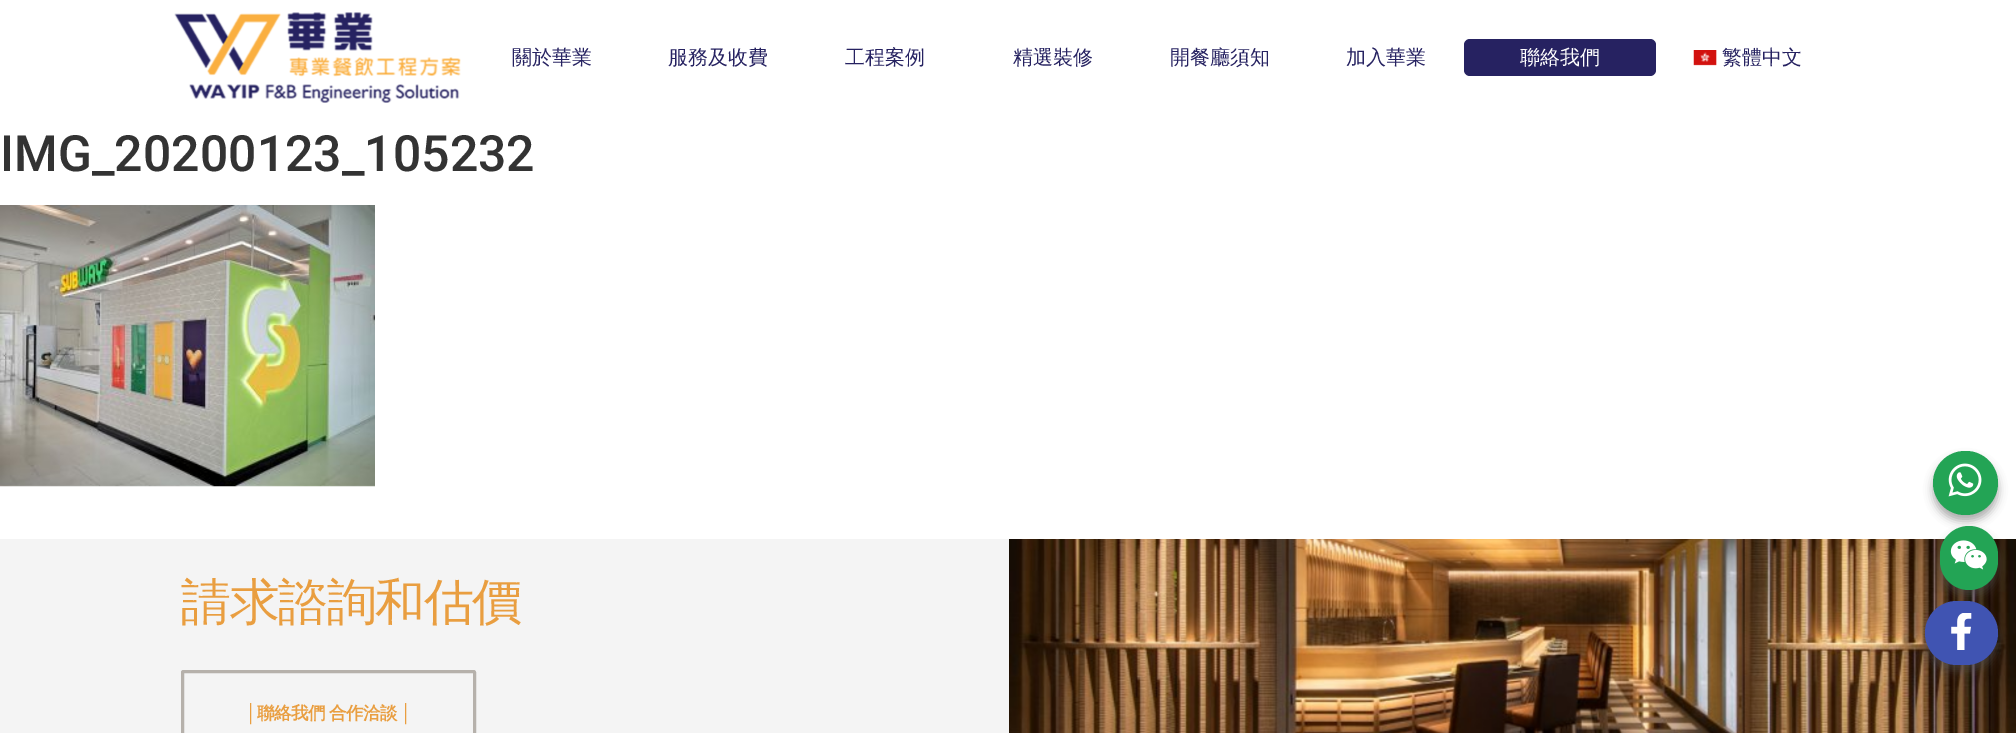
%!PS
<< /PageSize [2016 733] /PageUsesTransparency true >> setpagedevice
/rgb { 3 { 255 div 3 1 roll } repeat setrgbcolor } def
/font { [ exch dup neg 0 0 3 -1 roll 0 0 ] selectfont } def
/alpha { dup .setfillconstantalpha .setstrokeconstantalpha } def
/roundrect { 5 dict begin { /r /h /w /y /x } { exch def } forall
  x r add y moveto x w add y 2 copy h add r arct x w add y h add x 1 index r arct
  x y h add x y r arct x y 2 copy exch w add exch r arct closepath end } def
/shadow { 12 dict begin { /a /b /q /h /w /y /x } { exch def } forall gsave /was 0 def
  9 -2 -9 { dup b mul 4 div /e exch def 1 sub .425 mul 2.718 exch exp 1 add a .99 .min exch div /now exch def
    1 1 now sub 1 was sub div sub alpha /was now def
    w h .min e 2 mul add 0 gt { x e sub y e sub w e 2 mul add h e 2 mul add
      q e add b .6 mul add w h .min 2 div e add .min 0 .max roundrect fill } if } for grestore end } def
/picture { 5 dict begin { /h /w /y /x /name } { exch def } forall
  gsave x y translate w h scale
  w h 8 [w 0 0 h 0 0] name (r) file false 3 colorimage grestore end } def
0 .pushpdf14devicefilter
0 733 translate 1 -1 scale
4 setmiterlimit
255 255 255 rgb
0 0 2016 733 rectfill
(img/1.rgb) 174 12 287 91 picture
38 34 97 rgb
1464 39 192 37 6 roundrect fill
(img/2.rgb) 1693 50 24 16 picture
(img/3.rgb) 0 205 375 282 picture
244 244 244 rgb
0 539 1009 194 rectfill
182 177 171 rgb
3 setlinewidth
182.5 671.5 292 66 1 roundrect stroke
(img/4.rgb) 1009 539 1007 194 picture
86 86 86 rgb
1933 458 65 63 31.5 4.5 0.5 shadow
35 164 85 rgb
1933 451 65 64 32 roundrect fill
(img/5.rgb) 1948 463 34 34 picture
86 86 86 rgb
1940 533 58 63 29 4.5 0.5 shadow
35 164 85 rgb
1940 526 58 64 29 roundrect fill
(img/6.rgb) 1950 540 37 30 picture
86 86 86 rgb
1925 608 73 63 31.5 4.5 0.5 shadow
64 84 178 rgb
1925 601 73 64 32 roundrect fill
(img/7.rgb) 1951 613 21 37 picture
/WenQuanYiZenHei-Medium 20 font
38 34 97 rgb
[
  [(關於華業) 512 64]
  [(服務及收費) 668 64]
  [(工程案例) 845 64]
  [(精選裝修) 1013 64]
  [(開餐廳須知) 1170 64]
  [(加入華業) 1346 64]
] { aload pop moveto show } forall
255 255 255 rgb
1520 64 moveto (聯絡我們) show
38 34 97 rgb
1722 64 moveto (繁體中文) show
/Roboto-Medium 50 font
51 51 51 rgb
0 171 moveto (IMG_20200123_105232) show
/WenQuanYiZenHei-Medium 50 font
233 158 64 rgb
181 619 moveto -1.5 0 (請求諮詢和估價) ashow
/LiberationSans-Bold 17.5 font
246 719 moveto -0.5 0 (│) ashow
/WenQuanYiZenHei-Bold 17.5 font
257 719 moveto -0.5 0 (聯絡我們) ashow
329 719 moveto -0.5 0 (合作洽談) ashow
/LiberationSans-Bold 17.5 font
401 719 moveto -0.5 0 (│) ashow
.poppdf14devicefilter showpage
